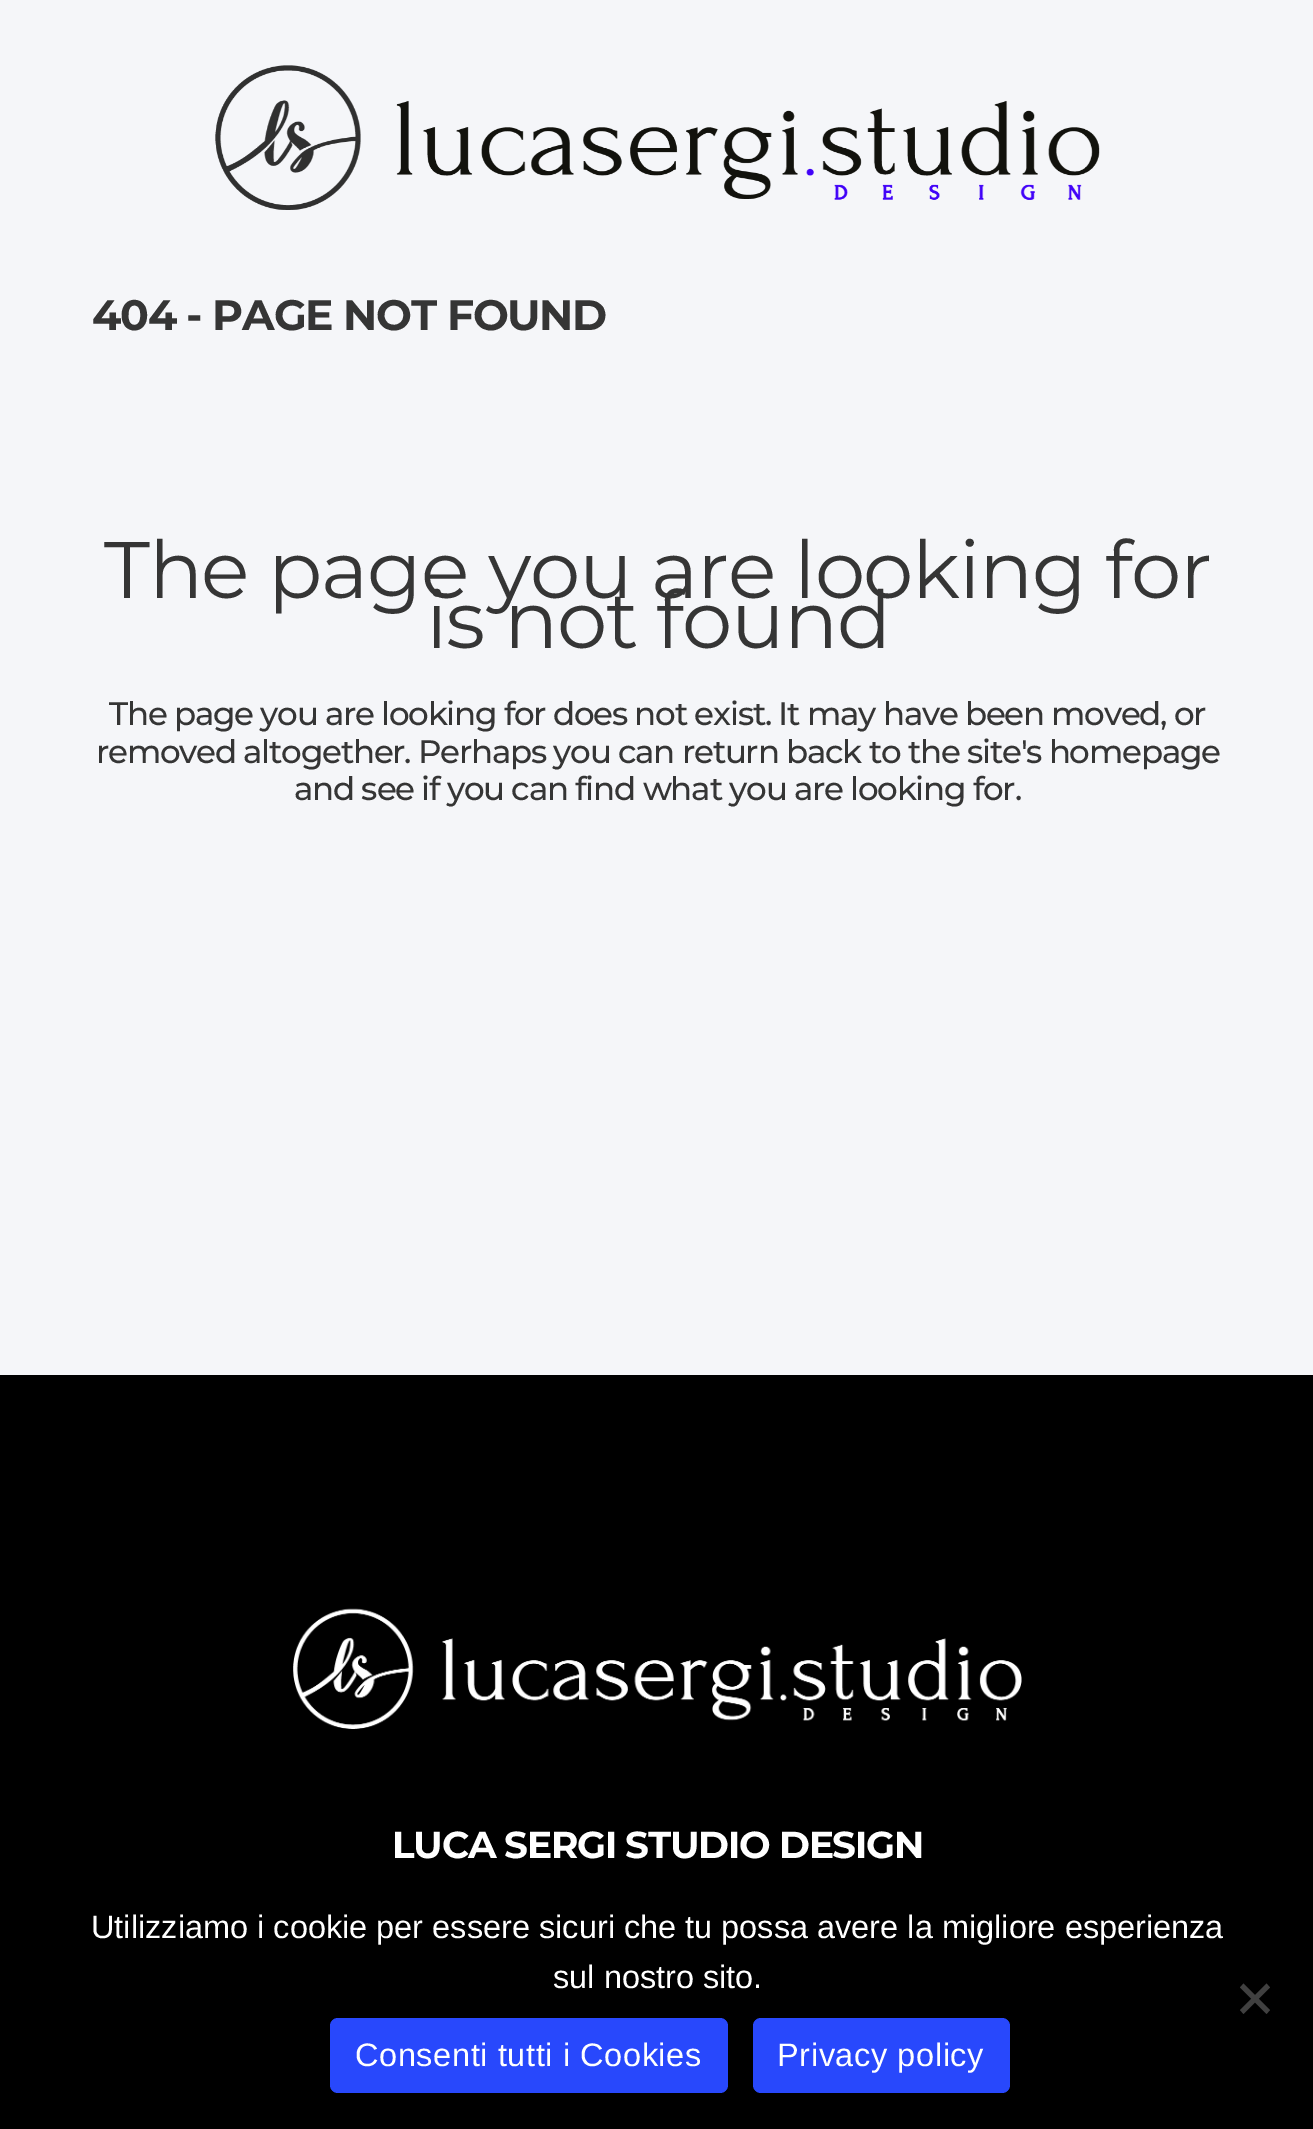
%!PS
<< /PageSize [1313 2129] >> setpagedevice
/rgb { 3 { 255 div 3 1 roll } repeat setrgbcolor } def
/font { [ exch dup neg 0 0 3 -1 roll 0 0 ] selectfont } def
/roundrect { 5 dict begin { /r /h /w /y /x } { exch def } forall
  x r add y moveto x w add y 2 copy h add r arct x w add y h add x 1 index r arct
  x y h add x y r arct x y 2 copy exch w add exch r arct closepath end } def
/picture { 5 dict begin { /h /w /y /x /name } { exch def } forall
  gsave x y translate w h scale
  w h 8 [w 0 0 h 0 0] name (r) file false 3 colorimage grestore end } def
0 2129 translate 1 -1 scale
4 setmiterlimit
245 246 249 rgb
0 0 1313 2129 rectfill
(img/1.rgb) 215 65 885 145 picture
0 0 0 rgb
0 1375 1313 754 rectfill
(img/2.rgb) 293 1608 729 121 picture
64 64 64 rgb
1266.5 1983.5 moveto 1270 1987.5 lineto 1243.5 2014 lineto 1240 2010 lineto closepath fill
1240 1987.5 moveto 1243.5 1983.5 lineto 1270 2010 lineto 1266.5 2014 lineto closepath fill
40 72 252 rgb
330 2018 398 75 8 roundrect fill
753 2018 257 75 8 roundrect fill
/Montserrat-Bold 42.5 font
53 53 53 rgb
92 330 moveto -1.25 0 (404 - PAGE NOT FOUND) ashow
/Montserrat-Regular 80 font
104 598 moveto -1.25 0 (The page you are looking for) ashow
426 648 moveto -1.25 0 (is not found) ashow
/Montserrat-Medium 32.5 font
109 725 moveto -1.25 0 (The page you are looking for does not exist. It may have been moved, or) ashow
96 763 moveto -1.25 0 (removed altogether. Perhaps you can return back to the site's homepage) ashow
294 800 moveto -1.25 0 (and see if you can find what you are looking for.) ashow
/Montserrat-Bold 37.5 font
255 255 255 rgb
392 1858 moveto -1.25 0 (LUCA SERGI STUDIO DESIGN) ashow
/LiberationSans-Regular 32.5 font
91 1938 moveto (Utilizziamo i cookie per essere sicuri che tu possa avere la migliore esperienza) show
553 1988 moveto (sul nostro sito.) show
355 2066 moveto 0.6 0 (Consenti tutti i Cookies) ashow
777 2066 moveto 0.6 0 (Privacy policy) ashow
showpage
